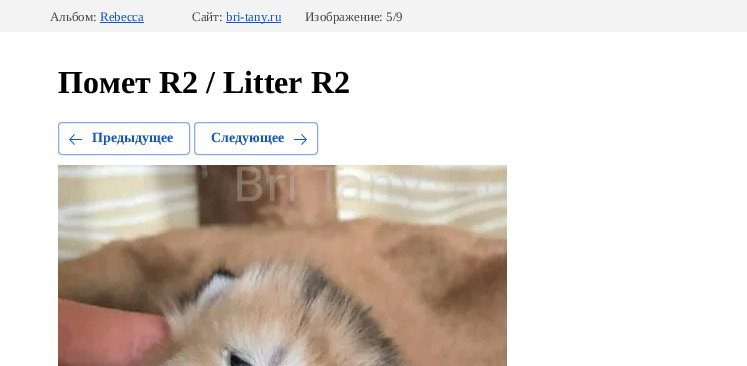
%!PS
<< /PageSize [747 366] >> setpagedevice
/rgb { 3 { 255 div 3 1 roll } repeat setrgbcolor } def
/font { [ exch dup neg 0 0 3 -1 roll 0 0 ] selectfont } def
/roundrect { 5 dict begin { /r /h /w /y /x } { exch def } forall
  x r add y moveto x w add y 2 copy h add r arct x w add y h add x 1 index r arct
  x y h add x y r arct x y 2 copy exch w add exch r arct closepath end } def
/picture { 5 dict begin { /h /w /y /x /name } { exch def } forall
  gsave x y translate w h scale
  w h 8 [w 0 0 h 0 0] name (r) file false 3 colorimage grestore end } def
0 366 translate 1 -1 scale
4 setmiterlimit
255 255 255 rgb
0 0 747 366 rectfill
[
  [0 0 747 32 243 243 243]
  [100 22 44 1 17 85 204]
  [226 22 55 1 17 85 204]
] { aload pop rgb rectfill } forall
136 170 230 rgb
58.5 122.5 131 32 3.5 roundrect stroke
(img/1.rgb) 69 134 13 11 picture
194.5 122.5 123 32 3.5 roundrect stroke
(img/2.rgb) 294 134 13 11 picture
(img/3.rgb) 58 165 449 201 picture
/LiberationSerif-Regular 13 font
72 72 72 rgb
50 21 moveto (Альбом:) show
17 85 204 rgb
100 21 moveto (Rebecca) show
72 72 72 rgb
192 21 moveto (Сайт:) show
17 85 204 rgb
226 21 moveto (bri-tany.ru) show
72 72 72 rgb
305 21 moveto (Изображение: 5/9) show
/LiberationSerif-Bold 32 font
0 0 0 rgb
58 93 moveto (Помет R2 / Litter R2) show
/LiberationSerif-Bold 14 font
17 85 204 rgb
92 142 moveto (Предыдущее) show
211 142 moveto (Следующее) show
showpage
